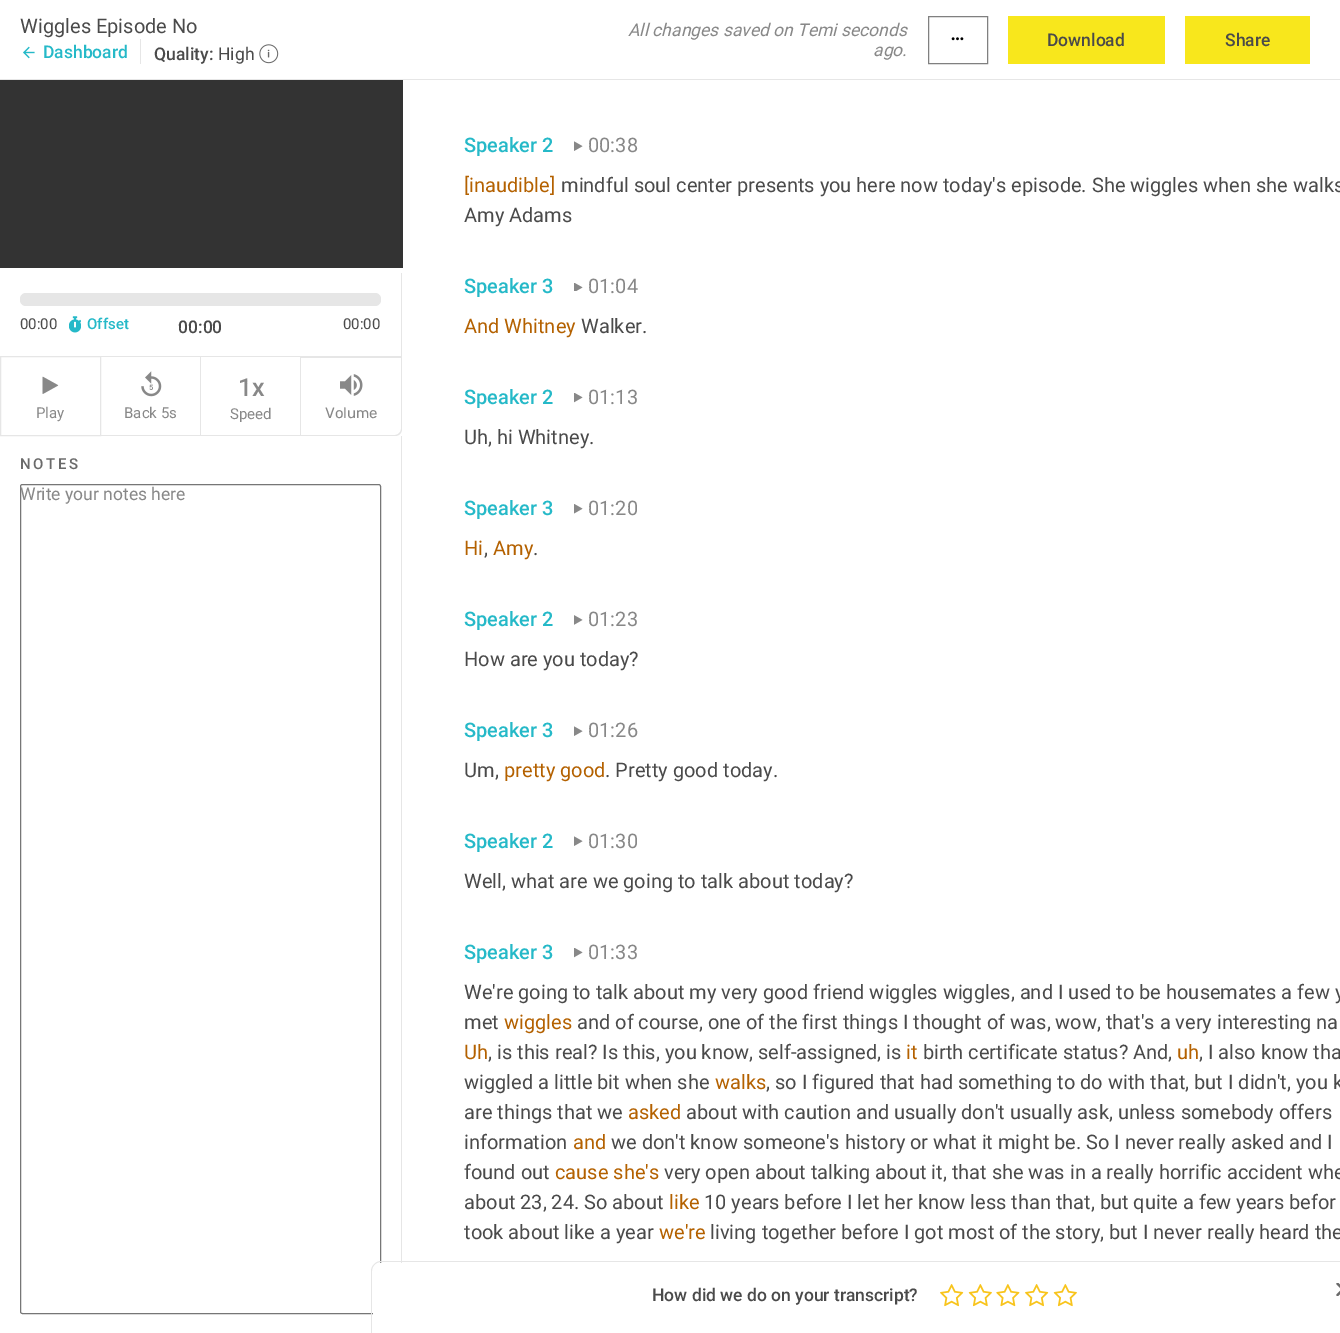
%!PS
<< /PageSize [1340 1333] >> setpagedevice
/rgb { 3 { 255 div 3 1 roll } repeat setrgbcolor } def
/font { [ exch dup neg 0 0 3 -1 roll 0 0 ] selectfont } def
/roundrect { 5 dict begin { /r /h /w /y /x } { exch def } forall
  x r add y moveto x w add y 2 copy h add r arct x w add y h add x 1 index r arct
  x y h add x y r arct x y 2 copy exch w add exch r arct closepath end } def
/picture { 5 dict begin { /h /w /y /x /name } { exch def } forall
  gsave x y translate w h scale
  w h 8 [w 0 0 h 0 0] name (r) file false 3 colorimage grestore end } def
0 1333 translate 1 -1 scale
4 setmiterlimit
255 255 255 rgb
0 0 1340 1333 rectfill
230 230 230 rgb
0 79 1340 1 rectfill
(img/1.rgb) 23 46 12 13 picture
140 39 1 25 rectfill
(img/2.rgb) 259 44 20 20 picture
128 128 128 rgb
928.5 16.5 59 47 rectstroke
(img/3.rgb) 951 37 13 4 picture
[
  [1008 16 157 48 248 231 28]
  [1185 16 125 48 248 231 28]
  [0 80 403 188 51 51 51]
  [401 273 1 83 230 230 230]
] { aload pop rgb rectfill } forall
20 293 361 13 6 roundrect fill
(img/4.rgb) 69 316 12 17 picture
0.5 356.5 100 79 rectstroke
(img/5.rgb) 42 376 17 18 picture
[
  [101 356 200 1 230 230 230]
  [200 356 1 80 230 230 230]
  [101 435 100 1 230 230 230]
] { aload pop rgb rectfill } forall
(img/6.rgb) 141 371 21 26 picture
300 356 1 80 rectfill
201 435 100 1 rectfill
301 356 moveto 402 356 lineto 402 429 lineto 402 433 399 436 395 436 curveto 301 436 lineto closepath 301 358 moveto 401 358 lineto 401 429 lineto 401 432 398 435 395 435 curveto 301 435 lineto closepath eofill
(img/7.rgb) 340 374 23 22 picture
401 436 1 827 rectfill
118 118 118 rgb
20.5 484.5 360 829 2 roundrect stroke
(img/8.rgb) 574 141 9 10 picture
(img/9.rgb) 574 283 9 8 picture
(img/10.rgb) 574 393 9 10 picture
(img/11.rgb) 574 504 9 10 picture
(img/12.rgb) 574 615 9 10 picture
(img/8.rgb) 574 726 9 10 picture
(img/8.rgb) 574 836 9 10 picture
(img/10.rgb) 574 948 9 10 picture
255 255 255 rgb
382 1263 moveto 1340 1263 lineto 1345 1263 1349 1267 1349 1272 curveto 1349 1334 lineto 373 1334 lineto 373 1272 lineto 373 1267 377 1263 382 1263 curveto closepath fill
230 230 230 rgb
381 1261 moveto 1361 1261 lineto 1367 1261 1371 1266 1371 1271 curveto 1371 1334 lineto 371 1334 lineto 371 1271 lineto 371 1266 376 1261 381 1261 curveto closepath 381 1262 moveto 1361 1262 lineto 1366 1262 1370 1266 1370 1271 curveto 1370 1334 lineto 372 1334 lineto 372 1271 lineto 372 1266 376 1262 381 1262 curveto closepath eofill
(img/13.rgb) 940 1284 24 23 picture
(img/14.rgb) 968 1284 24 23 picture
(img/15.rgb) 996 1284 24 23 picture
(img/13.rgb) 1025 1284 24 23 picture
(img/14.rgb) 1053 1284 24 23 picture
(img/16.rgb) 1336 1283 4 13 picture
/Roboto-Regular 20 font
74 74 74 rgb
20 33 moveto (Wiggles Episode No) show
/Roboto-Medium 17.5 font
37 185 200 rgb
43 58 moveto (Dashboard) show
74 74 74 rgb
154 60 moveto (Quality:) show
/Roboto-Regular 17.5 font
218 60 moveto (High) show
/Roboto-Italic 17.5 font
136 136 136 rgb
628 36 moveto (All changes saved on Temi seconds) show
873 56 moveto (ago.) show
/Roboto-Medium 17.5 font
74 74 74 rgb
1047 46 moveto (Download) show
1225 46 moveto (Share) show
/Roboto-Regular 15 font
20 329 moveto (00:00) show
/Roboto-Medium 15 font
37 185 200 rgb
87 329 moveto (Offset) show
/Roboto-Medium 17.5 font
74 74 74 rgb
178 333 moveto (00:00) show
/Roboto-Regular 15 font
343 329 moveto (00:00) show
136 136 136 rgb
36 418 moveto (Play) show
124 418 moveto (Back 5s) show
/Roboto-Medium 25 font
238 396 moveto (1x) show
/Roboto-Regular 15 font
230 419 moveto (Speed) show
/Rubik-Regular 15 font
325 418 moveto (Volume) show
/Roboto-Medium 15 font
106 106 106 rgb
20 469 moveto 2.5 0 (NOTES) ashow
/Roboto-Regular 17.5 font
136 136 136 rgb
20 500 moveto (Write your notes here) show
/Roboto-Medium 20 font
37 185 200 rgb
464 152 moveto (Speaker 2) show
/Roboto-Regular 20 font
136 136 136 rgb
588 152 moveto (00:38) show
180 97 0 rgb
464 192 moveto ([inaudible]) show
74 74 74 rgb
561 192 moveto (mindful soul center presents you here now today's episode. She wiggles when she walks) show
464 222 moveto (Amy Adams) show
/Roboto-Medium 20 font
37 185 200 rgb
464 293 moveto (Speaker 3) show
/Roboto-Regular 20 font
136 136 136 rgb
588 293 moveto (01:04) show
180 97 0 rgb
464 333 moveto (And Whitney) show
74 74 74 rgb
581 333 moveto (Walker.) show
/Roboto-Medium 20 font
37 185 200 rgb
464 404 moveto (Speaker 2) show
/Roboto-Regular 20 font
136 136 136 rgb
588 404 moveto (01:13) show
74 74 74 rgb
464 444 moveto (Uh, hi Whitney.) show
/Roboto-Medium 20 font
37 185 200 rgb
464 515 moveto (Speaker 3) show
/Roboto-Regular 20 font
136 136 136 rgb
588 515 moveto (01:20) show
180 97 0 rgb
464 555 moveto (Hi) show
74 74 74 rgb
484 555 moveto (,) show
180 97 0 rgb
493 555 moveto (Amy) show
74 74 74 rgb
533 555 moveto (.) show
/Roboto-Medium 20 font
37 185 200 rgb
464 626 moveto (Speaker 2) show
/Roboto-Regular 20 font
136 136 136 rgb
588 626 moveto (01:23) show
74 74 74 rgb
464 666 moveto (How are you today?) show
/Roboto-Medium 20 font
37 185 200 rgb
464 737 moveto (Speaker 3) show
/Roboto-Regular 20 font
136 136 136 rgb
588 737 moveto (01:26) show
74 74 74 rgb
464 777 moveto (Um,) show
180 97 0 rgb
504 777 moveto (pretty good) show
74 74 74 rgb
605 777 moveto (. Pretty good today.) show
/Roboto-Medium 20 font
37 185 200 rgb
464 848 moveto (Speaker 2) show
/Roboto-Regular 20 font
136 136 136 rgb
588 848 moveto (01:30) show
74 74 74 rgb
464 888 moveto (Well, what are we going to talk about today?) show
/Roboto-Medium 20 font
37 185 200 rgb
464 959 moveto (Speaker 3) show
/Roboto-Regular 20 font
136 136 136 rgb
588 959 moveto (01:33) show
74 74 74 rgb
464 999 moveto (We're going to talk about my very good friend wiggles wiggles, and I used to be housemates a few y) show
464 1029 moveto (met) show
180 97 0 rgb
504 1029 moveto (wiggles) show
74 74 74 rgb
577 1029 moveto (and of course, one of the first things I thought of was, wow, that's a very interesting na) show
180 97 0 rgb
464 1059 moveto (Uh) show
74 74 74 rgb
488 1059 moveto (, is this real? Is this, you know, self-assigned, is) show
180 97 0 rgb
906 1059 moveto (it) show
74 74 74 rgb
923 1059 moveto (birth certificate status? And,) show
180 97 0 rgb
1177 1059 moveto (uh) show
74 74 74 rgb
1199 1059 moveto (, I also know tha) show
464 1089 moveto (wiggled a little bit when she) show
180 97 0 rgb
715 1089 moveto (walks) show
74 74 74 rgb
766 1089 moveto (, so I figured that had something to do with that, but I didn't, you k) show
464 1119 moveto (are things that we) show
180 97 0 rgb
628 1119 moveto (asked) show
74 74 74 rgb
686 1119 moveto (about with caution and usually don't usually ask, unless somebody offers) show
464 1149 moveto (information) show
180 97 0 rgb
573 1149 moveto (and) show
74 74 74 rgb
611 1149 moveto (we don't know someone's history or what it might be. So I never really asked and I) show
464 1179 moveto (found out) show
180 97 0 rgb
555 1179 moveto (cause she's) show
74 74 74 rgb
664 1179 moveto (very open about talking about it, that she was in a really horrific accident whe) show
464 1209 moveto (about 23, 24. So about) show
180 97 0 rgb
669 1209 moveto (like) show
74 74 74 rgb
704 1209 moveto (10 years before I let her know less than that, but quite a few years befor) show
464 1239 moveto (took about like a year) show
180 97 0 rgb
659 1239 moveto (we're) show
74 74 74 rgb
710 1239 moveto (living together before I got most of the story, but I never really heard the) show
/Roboto-Medium 17.5 font
652 1301 moveto (How did we do on your transcript?) show
showpage
